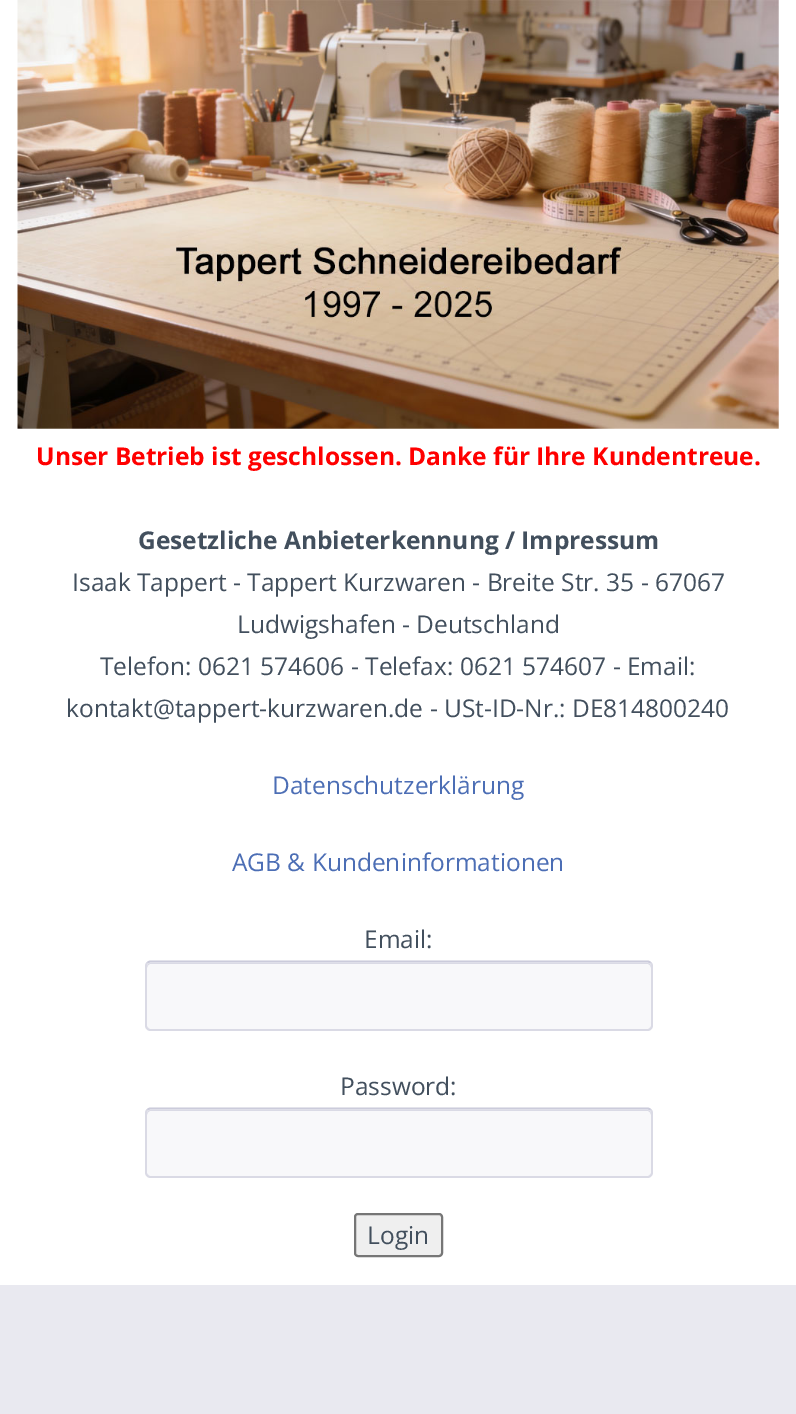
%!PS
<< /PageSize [796 1414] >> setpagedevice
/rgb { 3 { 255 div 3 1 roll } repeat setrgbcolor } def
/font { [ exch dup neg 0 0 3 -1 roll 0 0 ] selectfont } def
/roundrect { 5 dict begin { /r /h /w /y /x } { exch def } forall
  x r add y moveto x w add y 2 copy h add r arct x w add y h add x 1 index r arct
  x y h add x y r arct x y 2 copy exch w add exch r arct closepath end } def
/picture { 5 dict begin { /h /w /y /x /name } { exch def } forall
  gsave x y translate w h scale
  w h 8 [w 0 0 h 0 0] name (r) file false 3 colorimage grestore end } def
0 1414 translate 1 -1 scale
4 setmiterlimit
233 233 240 rgb
0 0 796 1414 rectfill
255 255 255 rgb
0 0 796 1285 rectfill
(img/1.rgb) 17 0 762 429 picture
248 248 250 rgb
145 961 508 70 5 roundrect fill
218 218 229 rgb
150 964 moveto 648 964 lineto 649 964 651 966 651 968 curveto 651 965 650 963 647 963 curveto 151 963 lineto 148 963 147 965 147 968 curveto 147 966 149 964 150 964 curveto closepath fill
203 203 219 rgb
1.8 setlinewidth
147.5 963 moveto 148 962 149.5 961.5 150.5 961.5 curveto 647.5 961.5 lineto 648.5 961.5 650 962 650.5 963 curveto stroke
218 218 229 rgb
650.5 963 moveto 651.5 963.5 652 965 652 966 curveto 652 1025.5 lineto 652 1026.5 651.5 1028 650.5 1028.5 curveto 650 1029.5 648.5 1030 647.5 1030 curveto 150.5 1030 lineto 149.5 1030 148 1029.5 147.5 1028.5 curveto 146.5 1028 146 1026.5 146 1025.5 curveto 146 966 lineto 146 965 146.5 963.5 147.5 963 curveto stroke
248 248 250 rgb
145 1108 508 70 5 roundrect fill
218 218 229 rgb
150 1111 moveto 648 1111 lineto 649 1111 651 1113 651 1115 curveto 651 1112 650 1110 647 1110 curveto 151 1110 lineto 148 1110 147 1112 147 1115 curveto 147 1113 149 1111 150 1111 curveto closepath fill
203 203 219 rgb
147.5 1110 moveto 148 1109 149.5 1108.5 150.5 1108.5 curveto 647.5 1108.5 lineto 648.5 1108.5 650 1109 650.5 1110 curveto stroke
218 218 229 rgb
650.5 1110 moveto 651.5 1110.5 652 1112 652 1113 curveto 652 1172.5 lineto 652 1173.5 651.5 1175 650.5 1175.5 curveto 650 1176.5 648.5 1177 647.5 1177 curveto 150.5 1177 lineto 149.5 1177 148 1176.5 147.5 1175.5 curveto 146.5 1175 146 1173.5 146 1172.5 curveto 146 1113 lineto 146 1112 146.5 1110.5 147.5 1110 curveto stroke
239 239 239 rgb
355 1214 87 42 3 roundrect gsave fill grestore
118 118 118 rgb
2 setlinewidth
stroke
/OpenSans-Bold 24.5 font
255 0 0 rgb
36 465 moveto (Unser Betrieb ist geschlossen. Danke für Ihre Kundentreue.) show
66 79 93 rgb
138 549 moveto (Gesetzliche Anbieterkennung / Impressum) show
/OpenSans-Regular 24.5 font
[
  [(Isaak Tappert - Tappert Kurzwaren - Breite Str. 35 - 67067) 72 591]
  [(Ludwigshafen - Deutschland) 237 633]
  [(Telefon: 0621 574606 - Telefax: 0621 574607 - Email:) 100 675]
  [(kontakt@tappert-kurzwaren.de - USt-ID-Nr.: DE814800240) 66 717]
] { aload pop moveto show } forall
76 110 181 rgb
272 794 moveto (Datenschutzerklärung) show
232 871 moveto (AGB & Kundeninformationen) show
66 79 93 rgb
[
  [(Email:) 364 948]
  [(Password:) 340 1095]
  [(Login) 367 1244]
] { aload pop moveto show } forall
showpage
